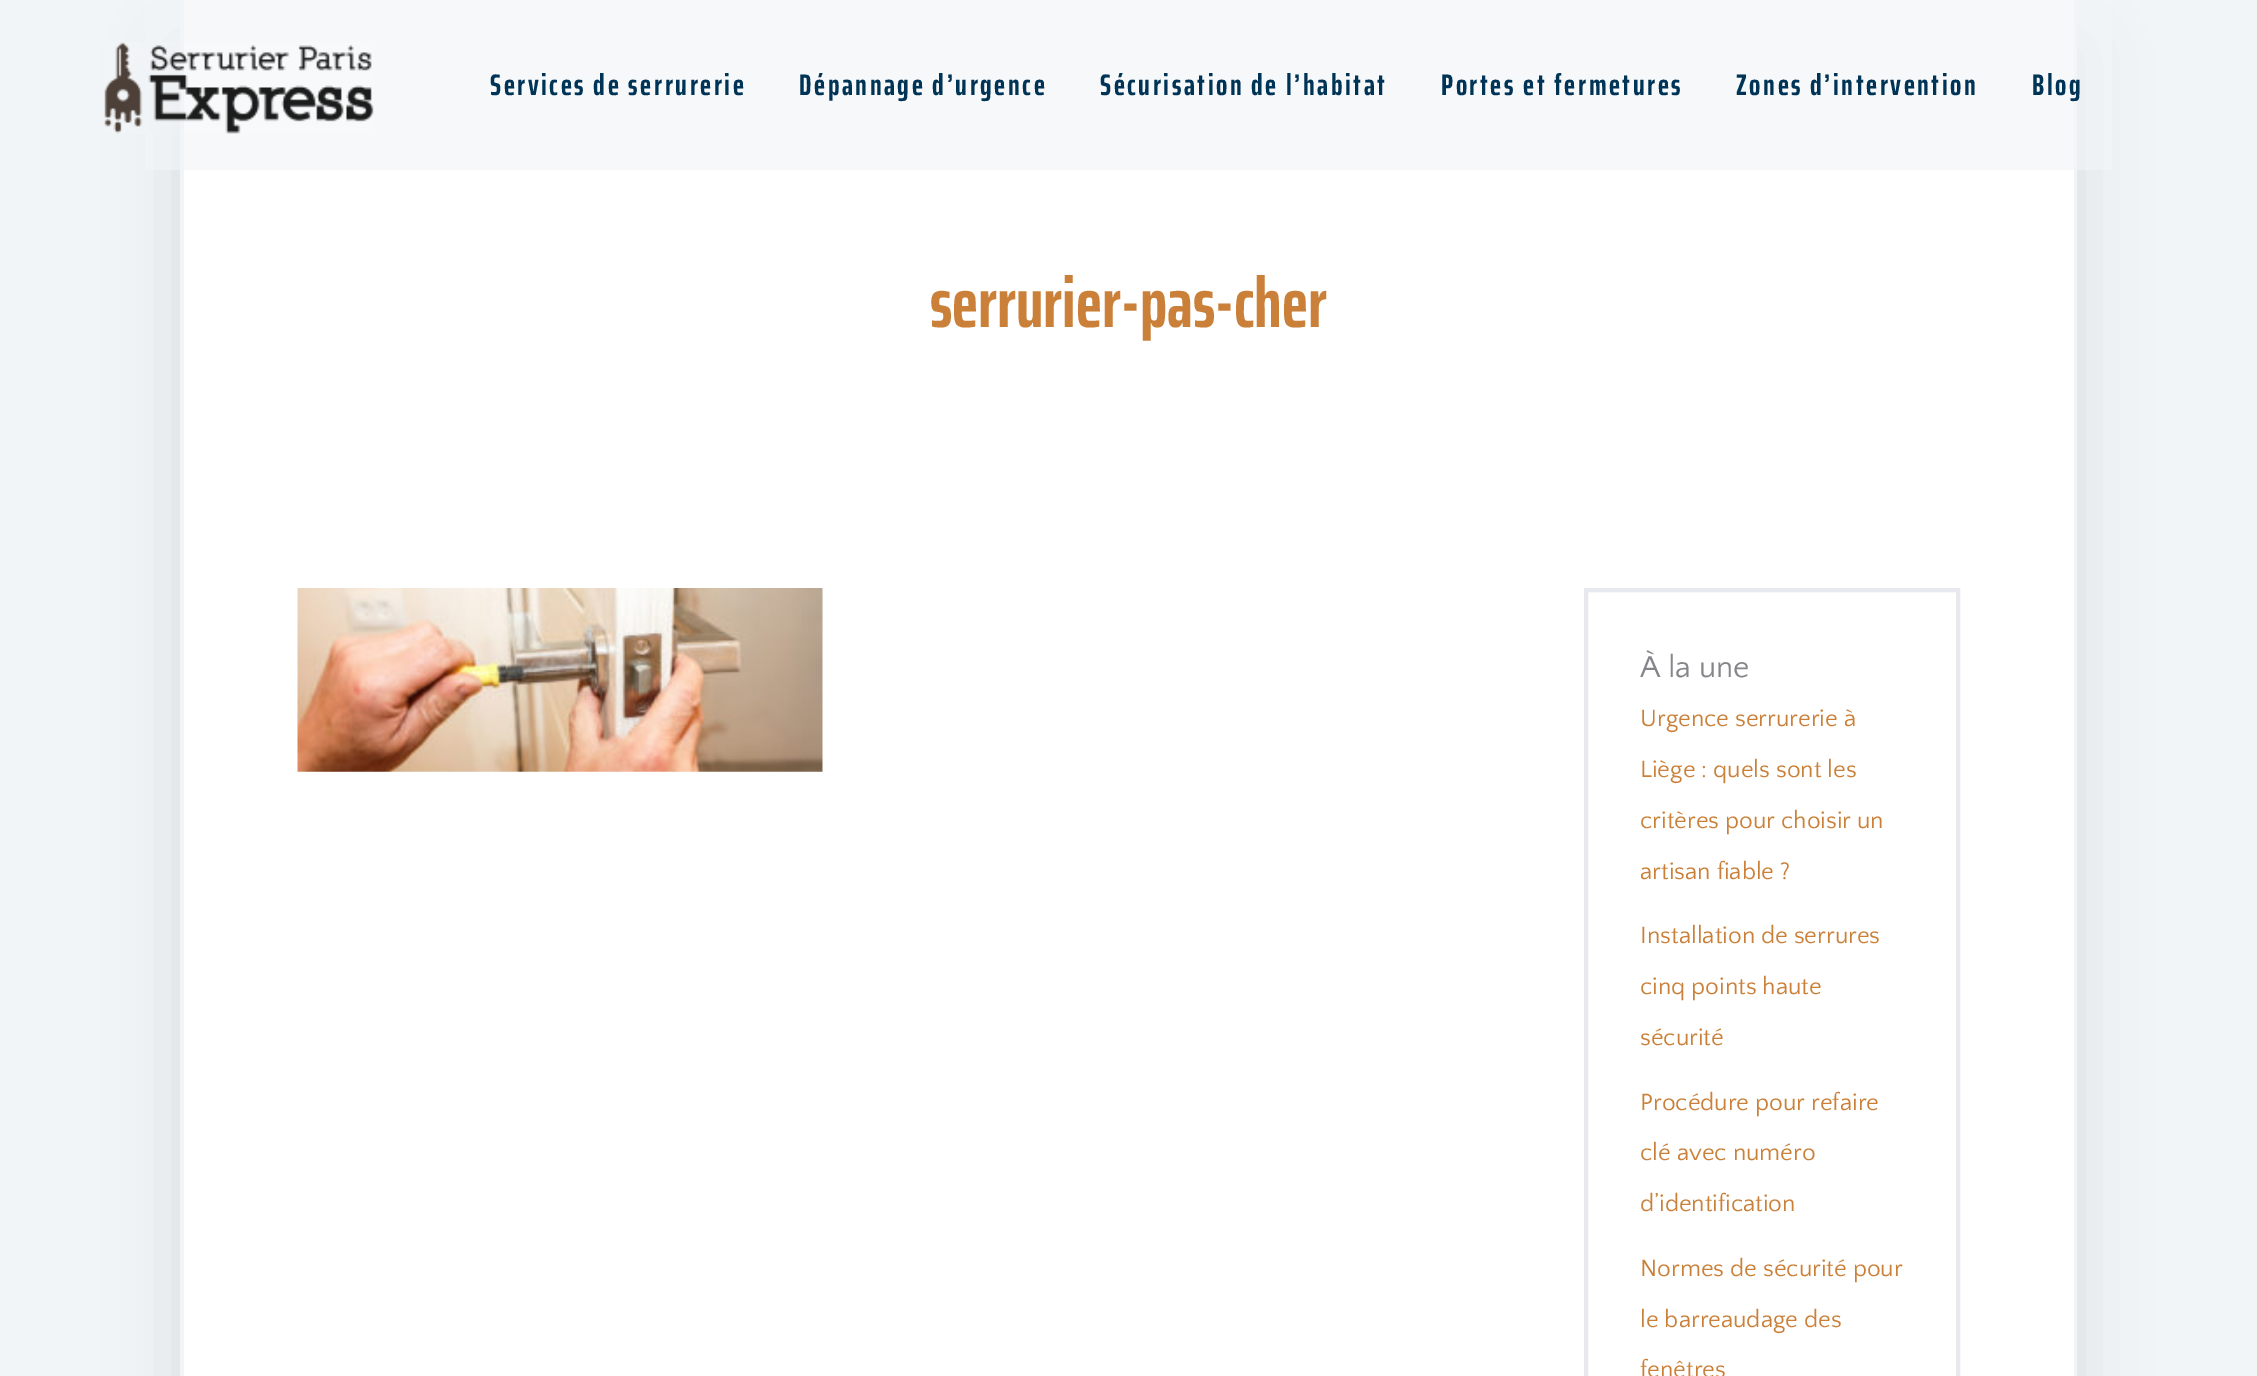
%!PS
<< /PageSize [2257 1376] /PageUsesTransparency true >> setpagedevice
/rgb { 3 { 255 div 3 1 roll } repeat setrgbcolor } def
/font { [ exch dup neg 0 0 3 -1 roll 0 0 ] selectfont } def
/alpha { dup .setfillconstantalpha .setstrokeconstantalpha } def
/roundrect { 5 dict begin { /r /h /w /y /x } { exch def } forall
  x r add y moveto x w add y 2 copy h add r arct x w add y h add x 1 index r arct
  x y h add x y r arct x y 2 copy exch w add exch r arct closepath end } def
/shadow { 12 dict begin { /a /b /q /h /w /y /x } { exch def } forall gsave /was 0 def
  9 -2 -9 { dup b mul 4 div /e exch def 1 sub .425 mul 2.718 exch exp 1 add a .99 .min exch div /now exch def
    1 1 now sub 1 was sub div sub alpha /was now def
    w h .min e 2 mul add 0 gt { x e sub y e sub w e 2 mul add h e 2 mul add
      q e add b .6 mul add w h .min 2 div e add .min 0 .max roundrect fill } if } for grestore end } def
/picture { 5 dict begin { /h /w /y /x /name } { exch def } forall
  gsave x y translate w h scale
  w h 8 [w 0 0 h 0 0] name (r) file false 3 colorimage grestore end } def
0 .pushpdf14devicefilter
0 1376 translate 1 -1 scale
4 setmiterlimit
242 245 247 rgb
0 0 2257 1376 rectfill
gsave
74 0 moveto 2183 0 lineto 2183 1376 lineto 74 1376 lineto closepath 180 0 moveto 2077 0 lineto 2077 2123 lineto 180 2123 lineto closepath eoclip newpath
0 0 0 rgb
180 47 1897 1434 0 35 0.1 shadow
grestore
255 255 255 rgb
184 0 1890 1376 rectfill
0.65 alpha
242 245 247 rgb
145 0 1967 170 rectfill
1 alpha
(img/1.rgb) 104 42 270 92 picture
(img/2.rgb) 297 588 526 184 picture
231 233 239 rgb
4 setlinewidth
1586 590 372 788 rectstroke
/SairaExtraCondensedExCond-Bold 29.75 font
0 52 86 rgb
490 95 moveto 2.6 0 (Services de serrurerie) ashow
799 95 moveto 2.6 0 (Dépannage d’urgence) ashow
1100 95 moveto 2.6 0 (Sécurisation de l’habitat) ashow
1441 95 moveto 2.6 0 (Portes et fermetures) ashow
1736 95 moveto 2.6 0 (Zones d’intervention) ashow
2032 95 moveto 2.6 0 (Blog) ashow
/SairaExtraCondensedExCond-Bold 70 font
202 128 57 rgb
930 327 moveto (serrurier-pas-cher) show
/QuattrocentoSans-Regular 31.5 font
133 134 137 rgb
1640 677 moveto (À la une) show
/QuattrocentoSans-Regular 24.5 font
202 128 57 rgb
[
  [(Urgence serrurerie à) 1640 726]
  [(Liège : quels sont les) 1640 777]
  [(critères pour choisir un) 1640 828]
  [(artisan fiable ?) 1640 879]
  [(Installation de serrures) 1640 943]
  [(cinq points haute) 1640 994]
  [(sécurité) 1640 1045]
  [(Procédure pour refaire) 1640 1110]
  [(clé avec numéro) 1640 1160]
  [(d’identification) 1640 1211]
  [(Normes de sécurité pour) 1640 1276]
  [(le barreaudage des) 1640 1327]
  [(fenêtres) 1640 1377]
] { aload pop moveto show } forall
.poppdf14devicefilter showpage
